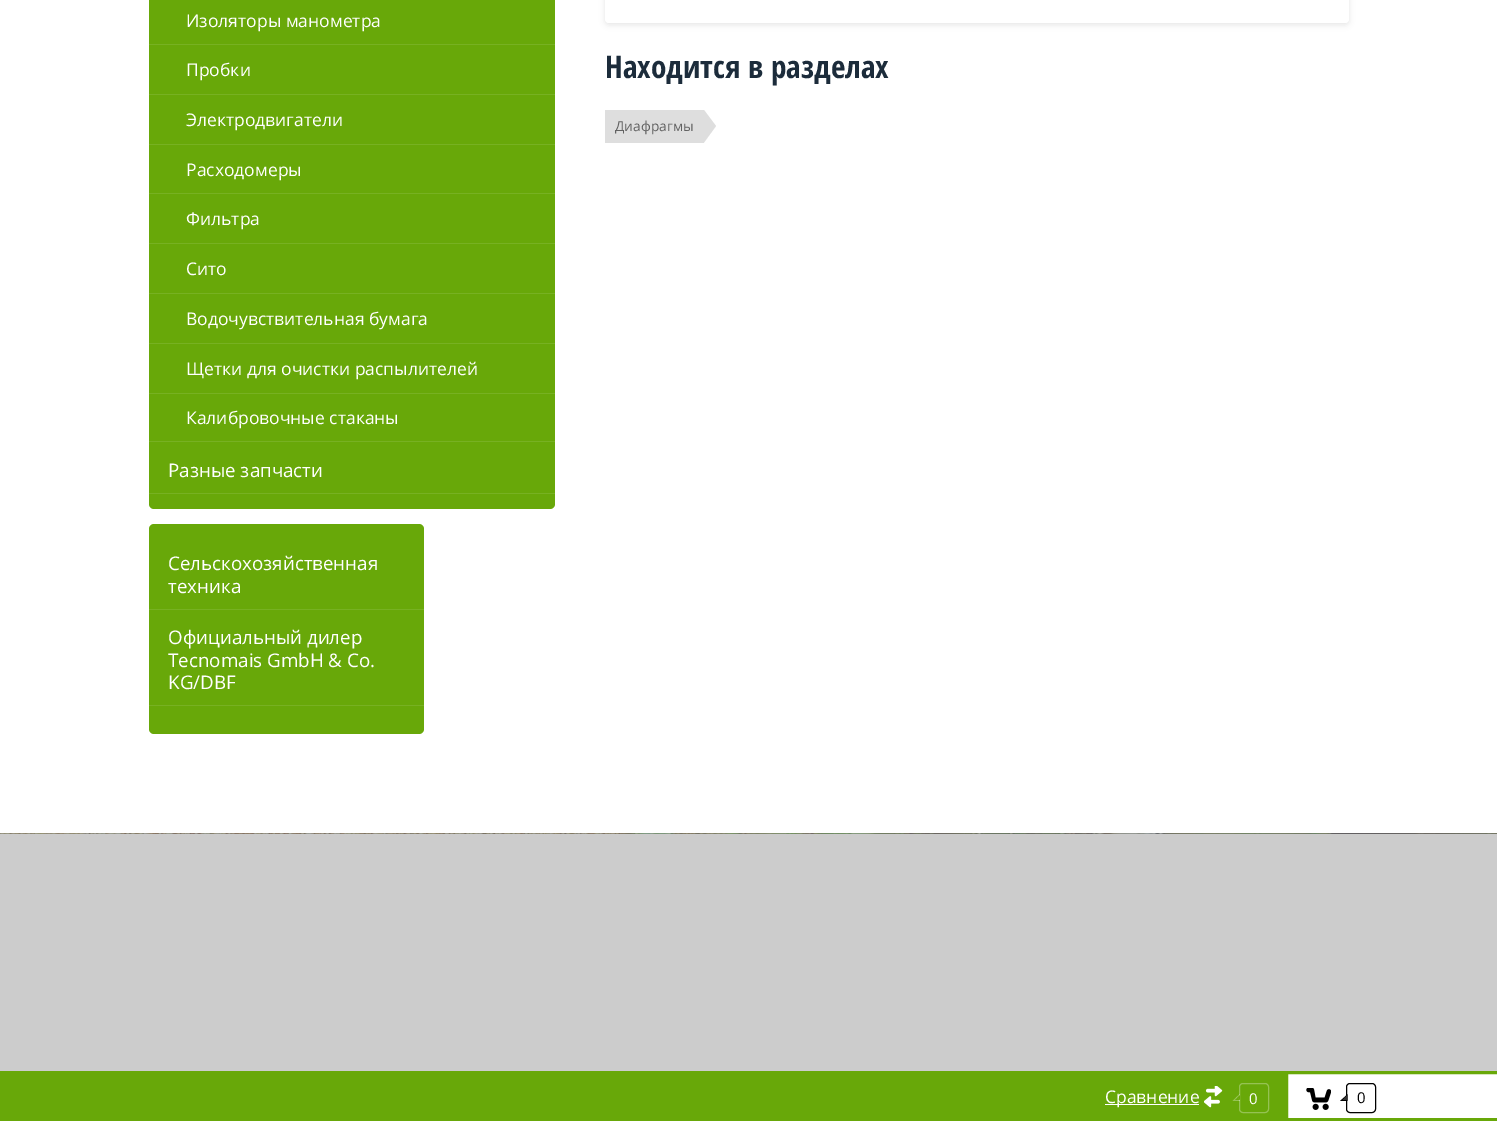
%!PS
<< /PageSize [1497 1121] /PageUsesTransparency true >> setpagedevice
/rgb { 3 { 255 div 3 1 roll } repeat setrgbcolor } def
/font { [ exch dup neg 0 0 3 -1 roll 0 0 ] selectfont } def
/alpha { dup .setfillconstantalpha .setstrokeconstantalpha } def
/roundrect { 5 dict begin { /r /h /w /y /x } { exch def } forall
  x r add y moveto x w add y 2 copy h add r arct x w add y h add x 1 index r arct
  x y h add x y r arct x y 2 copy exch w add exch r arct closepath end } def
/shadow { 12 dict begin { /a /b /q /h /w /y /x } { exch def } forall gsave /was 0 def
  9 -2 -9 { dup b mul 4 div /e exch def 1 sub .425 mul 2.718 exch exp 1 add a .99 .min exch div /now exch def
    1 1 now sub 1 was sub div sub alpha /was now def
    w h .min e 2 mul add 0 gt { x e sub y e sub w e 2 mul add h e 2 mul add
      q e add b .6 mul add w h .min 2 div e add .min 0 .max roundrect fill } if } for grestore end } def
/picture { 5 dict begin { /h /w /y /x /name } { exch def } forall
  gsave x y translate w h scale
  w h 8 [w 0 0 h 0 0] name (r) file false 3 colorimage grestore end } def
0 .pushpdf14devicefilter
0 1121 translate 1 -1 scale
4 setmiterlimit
255 255 255 rgb
0 0 1497 1121 rectfill
104 168 9 rgb
149 -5 406 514 5 roundrect fill
[
  [149 44 406 1 119 177 34]
  [149 94 406 1 119 177 34]
  [149 144 406 1 119 177 34]
  [149 193 406 1 119 177 34]
  [149 243 406 1 119 177 34]
  [149 293 406 1 119 177 34]
  [149 343 406 1 119 177 34]
  [149 393 406 1 119 177 34]
  [149 441 406 1 119 177 34]
  [149 493 406 1 119 177 34]
] { aload pop rgb rectfill } forall
104 168 9 rgb
149 524 275 210 5 roundrect fill
119 177 34 rgb
149 609 275 1 rectfill
149 705 275 1 rectfill
0 0 0 rgb
605 -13 744 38 4 3 0.1 shadow
255 255 255 rgb
605 -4 744 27 4 roundrect fill
222 222 222 rgb
605 110 99 33 rectfill
704 142.5 moveto 704 110 lineto 716 126 lineto closepath fill
104 168 9 rgb
0 1071 1285 50 rectfill
(img/1.rgb) 1204 1086 19 22 picture
255 255 255 rgb
1105 1104 94 1 rectfill
149 194 83 rgb
1239.5 1083.5 29 29 3.5 roundrect stroke
0.3 alpha
255 255 255 rgb
1240 1094 moveto 1240 1101 lineto 1236 1097.5 lineto closepath fill
1240 1101 moveto 1232.5 1101 lineto 1236 1097.5 lineto closepath fill
1 alpha
104 168 9 rgb
1240 1095 moveto 1240 1100 lineto 1237.5 1097.5 lineto closepath fill
1240 1100 moveto 1235 1100 lineto 1237.5 1097.5 lineto closepath fill
3 setlinewidth
1286.5 1072.5 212 47 rectstroke
(img/2.rgb) 1306 1088 25 22 picture
0 0 0 rgb
1 setlinewidth
1346.5 1083.5 29 29 3.5 roundrect stroke
1347.5 1094 moveto 1347.5 1101 lineto 1344 1097.5 lineto closepath fill
1347.5 1101 moveto 1340 1101 lineto 1344 1097.5 lineto closepath fill
51 51 51 rgb
1347.5 1095 moveto 1347.5 1100 lineto 1345 1097.5 lineto closepath fill
1347.5 1100 moveto 1342.5 1100 lineto 1345 1097.5 lineto closepath fill
(img/3.rgb) 0 833 1497 1 picture
204 204 204 rgb
0 834 1497 237 rectfill
/OpenSans-Regular 17.5 font
255 255 255 rgb
[
  [(Изоляторы манометра) 186 27]
  [(Пробки) 186 76]
  [(Электродвигатели) 186 126]
  [(Расходомеры) 186 176]
  [(Фильтра) 186 225]
  [(Сито) 186 275]
  [(Водочувствительная бумага) 186 325]
  [(Щетки для очистки распылителей) 186 375]
  [(Калибровочные стаканы) 186 424]
] { aload pop moveto show } forall
/OpenSans-Regular 18.75 font
[
  [(Разные запчасти) 168 477]
  [(Сельскохозяйственная) 168 570]
  [(техника) 168 593]
  [(Официальный дилер) 168 644]
  [(Tecnomais GmbH & Co.) 168 667]
  [(KG/DBF) 168 689]
] { aload pop moveto show } forall
/OpenSansCondensed-Bold 31.25 font
28 44 59 rgb
605 78 moveto (Находится в разделах) show
/OpenSans-Regular 13.75 font
98 98 98 rgb
615 131 moveto (Диафрагмы) show
/OpenSans-Regular 17.5 font
255 255 255 rgb
1105 1103 moveto (Сравнение) show
/OpenSans-Regular 15 font
1249 1104 moveto (0) show
0 0 0 rgb
1357 1103 moveto (0) show
.poppdf14devicefilter showpage
